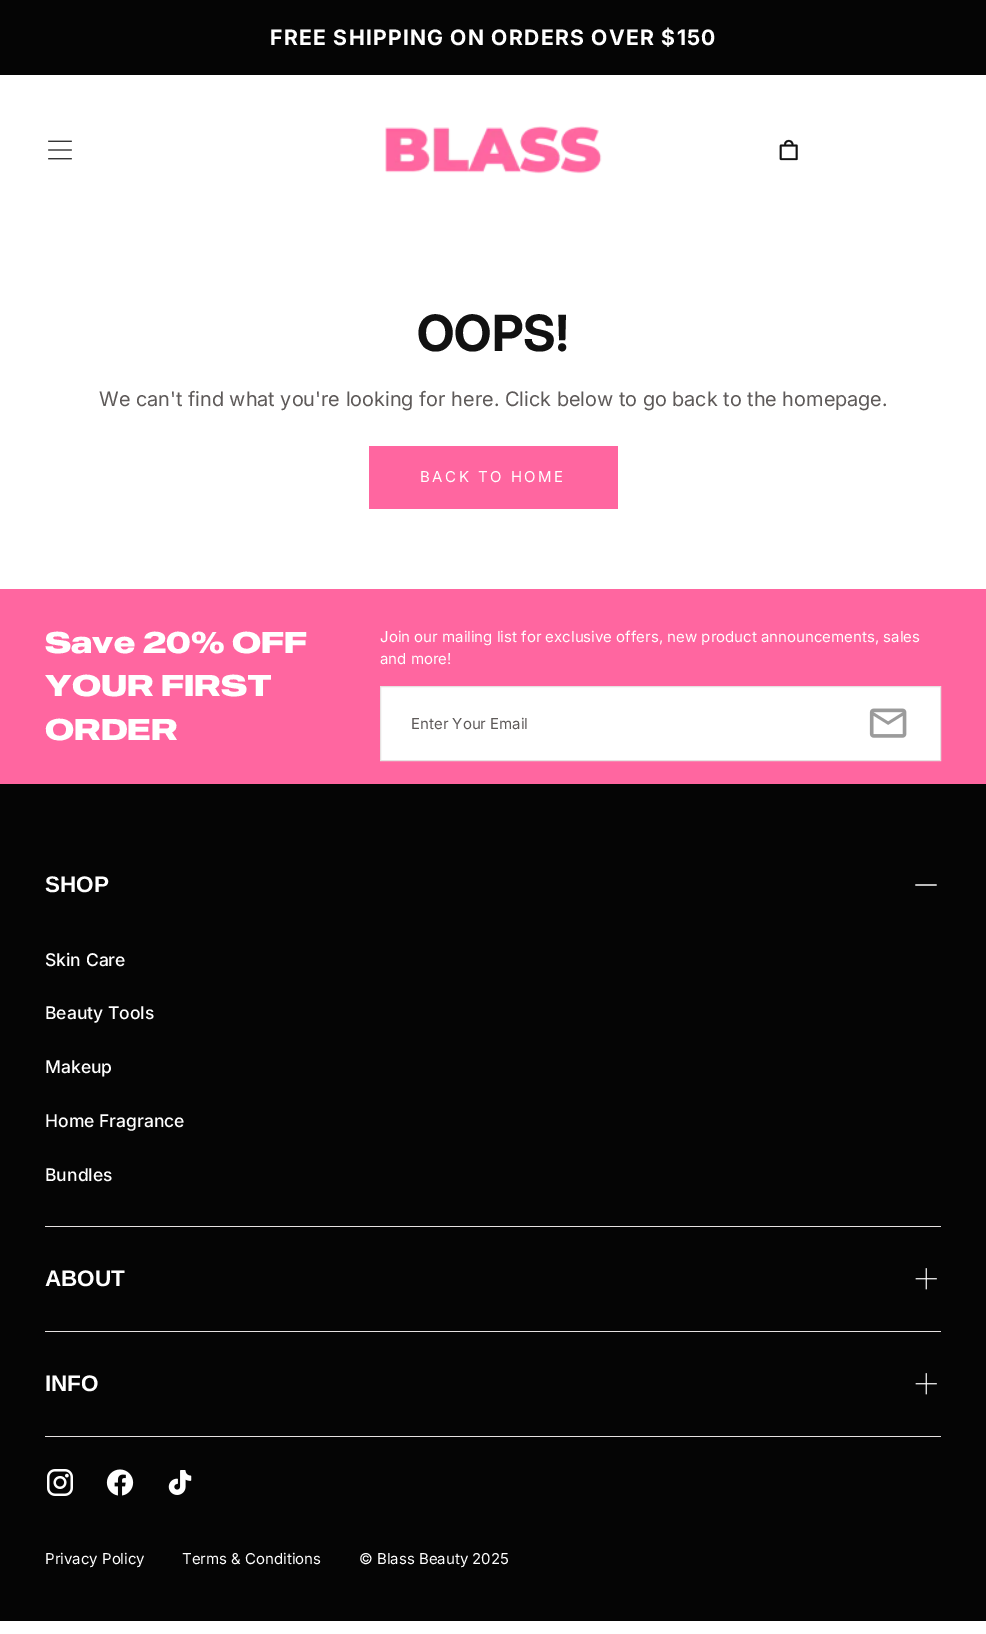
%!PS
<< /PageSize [986 1634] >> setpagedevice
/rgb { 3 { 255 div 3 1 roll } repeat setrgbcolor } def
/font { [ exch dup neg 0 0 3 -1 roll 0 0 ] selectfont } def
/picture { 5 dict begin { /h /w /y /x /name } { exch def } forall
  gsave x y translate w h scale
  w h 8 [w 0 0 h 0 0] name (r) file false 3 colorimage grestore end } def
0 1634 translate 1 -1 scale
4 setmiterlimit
255 255 255 rgb
0 0 986 1634 rectfill
5 5 5 rgb
0 0 986 75 rectfill
(img/1.rgb) 48 140 24 20 picture
(img/2.rgb) 385 126 217 48 picture
(img/3.rgb) 779 139 19 22 picture
255 102 160 rgb
369 446 249 63 rectfill
0 589 986 195 rectfill
255 255 255 rgb
380.5 686.5 moveto 940.5 686.5 lineto 940.5 760.5 lineto 380.5 760.5 lineto closepath gsave fill grestore
230 226 225 rgb
stroke
(img/4.rgb) 869 708 38 30 picture
5 5 5 rgb
0 784 986 837 rectfill
230 226 225 rgb
45 1226 896 1 rectfill
255 255 255 rgb
1.2 setlinewidth
2 setlinecap
916 885 moveto 936 885 lineto stroke
230 226 225 rgb
45 1331 896 1 rectfill
(img/5.rgb) 915 1268 22 22 picture
45 1436 896 1 rectfill
(img/5.rgb) 915 1373 22 22 picture
(img/6.rgb) 47 1469 26 27 picture
(img/7.rgb) 106 1469 28 27 picture
(img/8.rgb) 168 1470 24 25 picture
/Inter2-Bold 21.25 font
255 255 255 rgb
270 45 moveto 1.25 0 (FREE SHIPPING ON ORDERS OVER $150) ashow
/Inter-Bold 50 font
17 17 17 rgb
417 351 moveto (OOPS!) show
/Inter-Regular 20 font
94 90 89 rgb
99 406 moveto (We can't find what you're looking for here. Click below to go back to the homepage.) show
/Inter2-Regular 15 font
255 255 255 rgb
420 482 moveto 2.5 0 (BACK TO HOME) ashow
/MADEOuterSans-Bold 30 font
[
  [(Save 20% OFF) 45 653]
  [(YOUR FIRST) 45 696]
  [(ORDER) 45 740]
] { aload pop moveto show } forall
/Inter2-Regular 15 font
380 642 moveto (Join our mailing list for exclusive offers, new product announcements, sales) show
380 664 moveto (and more!) show
94 90 89 rgb
411 729 moveto (Enter Your Email) show
/LiberationSans-Bold 22.5 font
255 255 255 rgb
45 892 moveto (SHOP) show
/Inter-Medium 17.5 font
[
  [(Skin Care) 45 966]
  [(Beauty Tools) 45 1019]
  [(Makeup) 45 1073]
  [(Home Fragrance) 45 1127]
  [(Bundles) 45 1181]
] { aload pop moveto show } forall
/LiberationSans-Bold 22.5 font
45 1286 moveto (ABOUT) show
45 1391 moveto (INFO) show
/Inter2-Regular 15 font
[
  [(Privacy Policy) 45 1564]
  [(Terms & Conditions) 182 1564]
  [(© Blass Beauty 2025) 359 1564]
] { aload pop moveto show } forall
showpage
